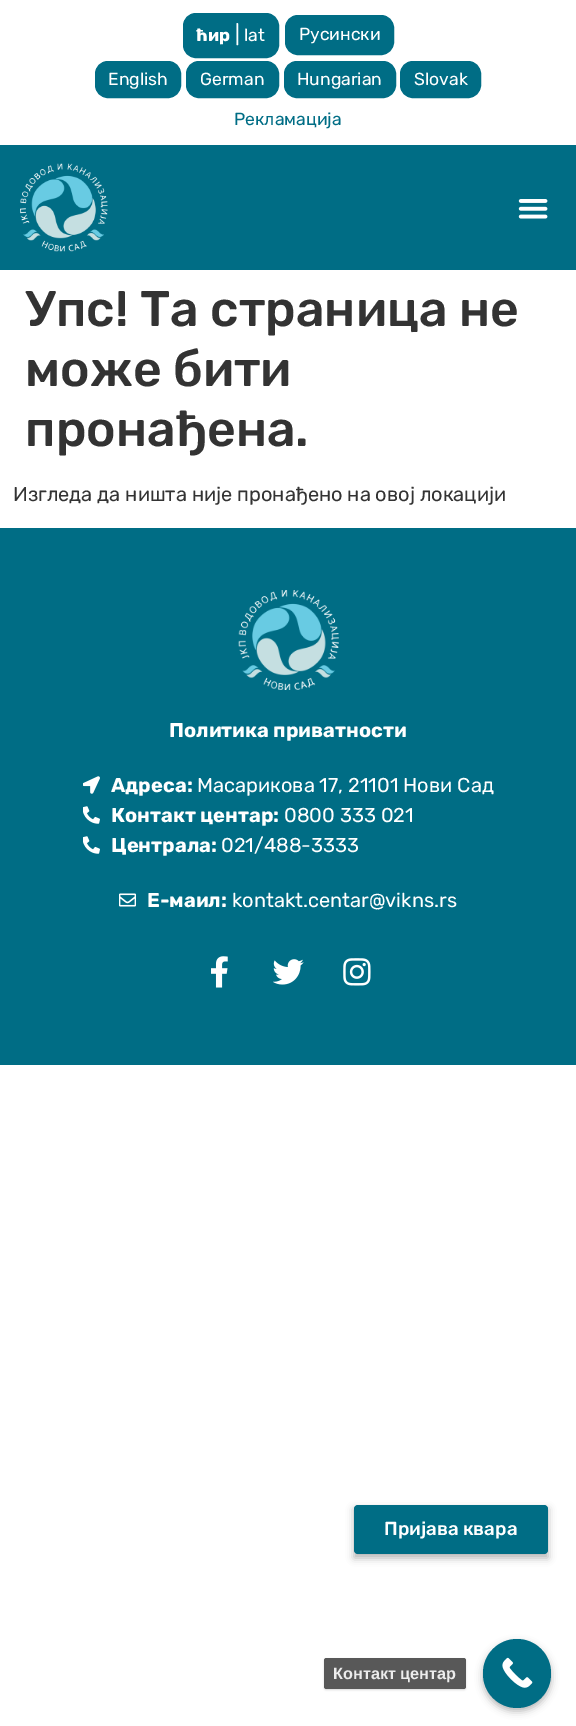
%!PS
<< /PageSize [576 1726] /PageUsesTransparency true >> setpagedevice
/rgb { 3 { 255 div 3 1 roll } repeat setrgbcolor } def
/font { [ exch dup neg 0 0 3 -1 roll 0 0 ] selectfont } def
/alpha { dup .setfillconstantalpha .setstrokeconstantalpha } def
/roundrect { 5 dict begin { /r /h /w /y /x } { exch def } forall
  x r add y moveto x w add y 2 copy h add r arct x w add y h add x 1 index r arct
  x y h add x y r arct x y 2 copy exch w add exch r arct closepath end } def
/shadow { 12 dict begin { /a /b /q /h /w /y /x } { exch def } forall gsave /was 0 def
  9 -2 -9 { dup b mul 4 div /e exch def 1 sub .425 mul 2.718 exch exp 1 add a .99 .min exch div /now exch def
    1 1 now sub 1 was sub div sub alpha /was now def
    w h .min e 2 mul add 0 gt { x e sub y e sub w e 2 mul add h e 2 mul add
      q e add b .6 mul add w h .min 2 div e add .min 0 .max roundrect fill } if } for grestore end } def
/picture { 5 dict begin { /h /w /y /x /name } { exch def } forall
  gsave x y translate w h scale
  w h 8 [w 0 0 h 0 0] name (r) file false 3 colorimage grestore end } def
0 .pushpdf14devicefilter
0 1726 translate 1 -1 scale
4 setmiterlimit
255 255 255 rgb
0 0 576 1726 rectfill
0 109 133 rgb
183.5 13.5 95 44 12.5 roundrect gsave fill grestore
stroke
285.5 15.5 108 39 12.5 roundrect gsave fill grestore
stroke
95.5 61.5 85 36 12.5 roundrect gsave fill grestore
stroke
186.5 61.5 92 36 12.5 roundrect gsave fill grestore
stroke
284.5 61.5 111 36 12.5 roundrect gsave fill grestore
stroke
400.5 61.5 80 36 12.5 roundrect gsave fill grestore
stroke
0 145 576 125 rectfill
(img/1.rgb) 20 163 88 89 picture
(img/2.rgb) 518 199 30 20 picture
0 528 576 537 rectfill
(img/3.rgb) 238 590 101 100 picture
(img/4.rgb) 83 776 17 18 picture
(img/5.rgb) 83 806 17 18 picture
(img/5.rgb) 83 836 17 18 picture
(img/6.rgb) 119 893 17 14 picture
(img/7.rgb) 211 956 17 32 picture
(img/8.rgb) 273 959 31 26 picture
(img/9.rgb) 343 958 28 28 picture
0 0 0 rgb
354 1509 194 49 0 4 0.3 shadow
0 109 133 rgb
354 1505 194 49 4 roundrect fill
0 0 0 rgb
483 1643 68 68 34 4 0.3 shadow
0 109 133 rgb
483 1639 68 69 34 roundrect fill
(img/10.rgb) 502 1657 31 31 picture
gsave
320 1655 moveto 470 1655 lineto 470 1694 lineto 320 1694 lineto closepath 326.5 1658 moveto 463.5 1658 lineto 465 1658 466 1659 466 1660.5 curveto 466 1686.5 lineto 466 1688 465 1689 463.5 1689 curveto 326.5 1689 lineto 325 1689 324 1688 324 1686.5 curveto 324 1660.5 lineto 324 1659 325 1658 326.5 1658 curveto closepath eoclip newpath
0 0 0 rgb
324 1659 142 31 2.5 1 0.15 shadow
grestore
0.9 alpha
70 70 70 rgb
324 1658 142 31 2.5 roundrect fill
/Rubik-Bold 17.5 font
1 alpha
255 255 255 rgb
196 41 moveto (ћир) show
/Rubik-Regular 20 font
235 41 moveto (|) show
/Rubik-Regular 17.5 font
[
  [(lat) 244 41]
  [(Русински) 299 40]
  [(English) 108 85]
  [(German) 200 85]
  [(Hungarian) 297 85]
  [(Slovak) 414 85]
] { aload pop moveto show } forall
0 109 133 rgb
234 125 moveto (Рекламација) show
/Rubik-Medium 50 font
51 51 51 rgb
[
  [(Упс! Та страница не) 25 326]
  [(може бити) 25 386]
  [(пронађена.) 25 446]
] { aload pop moveto show } forall
/Rubik-Regular 20 font
13 501 moveto (Изгледа да ништа није пронађено на овој локацији) show
/Rubik-Bold 20 font
255 255 255 rgb
169 737 moveto (Политика приватности) show
111 792 moveto (Адреса:) show
/Rubik-Regular 20 font
197 792 moveto (Масарикова 17, 21101 Нови Сад) show
/Rubik-Bold 20 font
111 822 moveto (Контакт центар:) show
/Rubik-Regular 20 font
284 822 moveto (0800 333 021) show
/Rubik-Bold 20 font
111 852 moveto (Централа:) show
/Rubik-Regular 20 font
221 852 moveto (021/488-3333) show
/Rubik-Bold 20 font
147 907 moveto (Е-маил:) show
/Rubik-Regular 20 font
232 907 moveto (kontakt.centar@vikns.rs) show
/Rubik-Medium 18.75 font
384 1535 moveto (Пријава квара) show
/LiberationSans-Bold 16.25 font
236 236 236 rgb
333 1679 moveto (Контакт центар) show
.poppdf14devicefilter showpage
